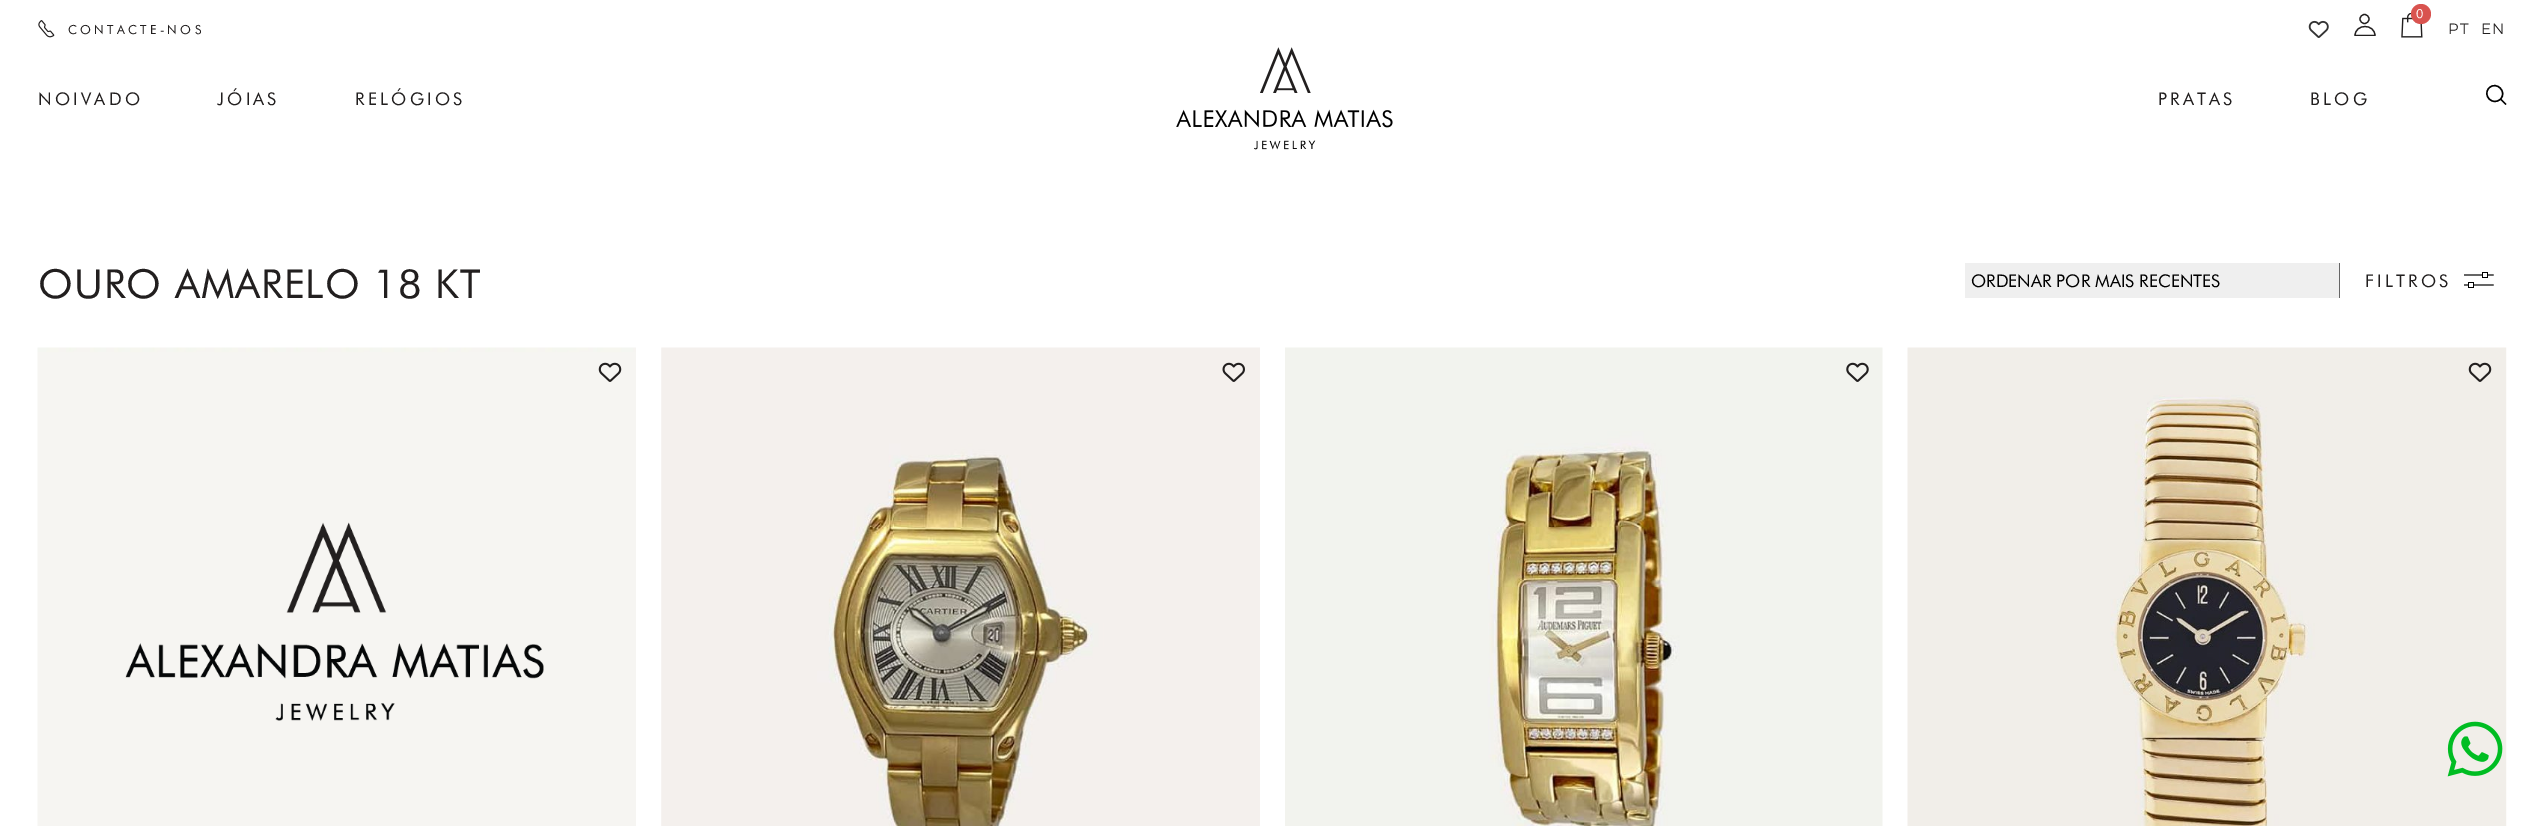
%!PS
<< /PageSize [2543 826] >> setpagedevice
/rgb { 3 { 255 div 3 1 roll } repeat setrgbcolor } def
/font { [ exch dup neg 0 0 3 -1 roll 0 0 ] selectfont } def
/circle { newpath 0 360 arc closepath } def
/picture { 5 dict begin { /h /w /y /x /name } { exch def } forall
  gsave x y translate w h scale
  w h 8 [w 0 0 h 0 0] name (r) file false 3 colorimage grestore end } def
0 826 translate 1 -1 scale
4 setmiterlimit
255 255 255 rgb
0 0 2543 826 rectfill
(img/1.rgb) 38 20 17 18 picture
(img/2.rgb) 2308 20 21 18 picture
gsave
2354 14 22 22 rectclip
34 31 31 rgb
1.2 setlinewidth
2355 35.5 moveto 2355.5 23.5 2374.5 23.5 2375 35.5 curveto closepath stroke
grestore
34 31 31 rgb
1.2 setlinewidth
2364.5 19 4.5 circle stroke
(img/3.rgb) 2401 13 22 25 picture
217 83 79 rgb
2421 14 10 circle fill
(img/4.rgb) 1176 47 217 103 picture
0 0 0 rgb
1.4 setlinewidth
2500.5 99 moveto 2493 106.5 2482 95.5 2489 88 curveto 2496.5 80.5 2507.5 92 2500.5 99 curveto closepath 2500 98.5 moveto 2506 104.5 lineto stroke
239 239 239 rgb
1965 263 374 35 rectfill
102 102 102 rgb
2339 263 1 35 rectfill
(img/5.rgb) 2464 272 30 16 picture
(img/6.rgb) 37 347 599 479 picture
(img/7.rgb) 598 362 24 20 picture
(img/8.rgb) 661 347 599 479 picture
(img/9.rgb) 1222 362 23 20 picture
(img/10.rgb) 1285 347 598 479 picture
(img/11.rgb) 1846 362 23 20 picture
(img/12.rgb) 1907 347 600 479 picture
(img/13.rgb) 2468 362 24 20 picture
(img/14.rgb) 2447 721 56 56 picture
/Futura-Regular 12.5 font
34 31 31 rgb
68 34 moveto 3.25 0 (CONTACTE-NOS) ashow
255 255 255 rgb
2416 18 moveto 3.25 0 (0) ashow
/Montserrat-Regular 15 font
34 31 31 rgb
2448 34 moveto 1 0 (PT) ashow
2481 34 moveto 1 0 (EN) ashow
/Futura-Regular 17.5 font
38 105 moveto 3.25 0 (NOIVADO) ashow
217 105 moveto 3.25 0 (JÓIAS) ashow
355 105 moveto 3.25 0 (RELÓGIOS) ashow
2158 105 moveto 3.25 0 (PRATAS) ashow
2310 105 moveto 3.25 0 (BLOG) ashow
/Futura-Regular 40 font
38 298 moveto 1 0 (OURO AMARELO 18 KT) ashow
/Futura-Regular 17.5 font
0 0 0 rgb
1971 287 moveto (ORDENAR POR MAIS RECENTES) show
34 31 31 rgb
2365 287 moveto 3.25 0 (FILTROS) ashow
showpage
